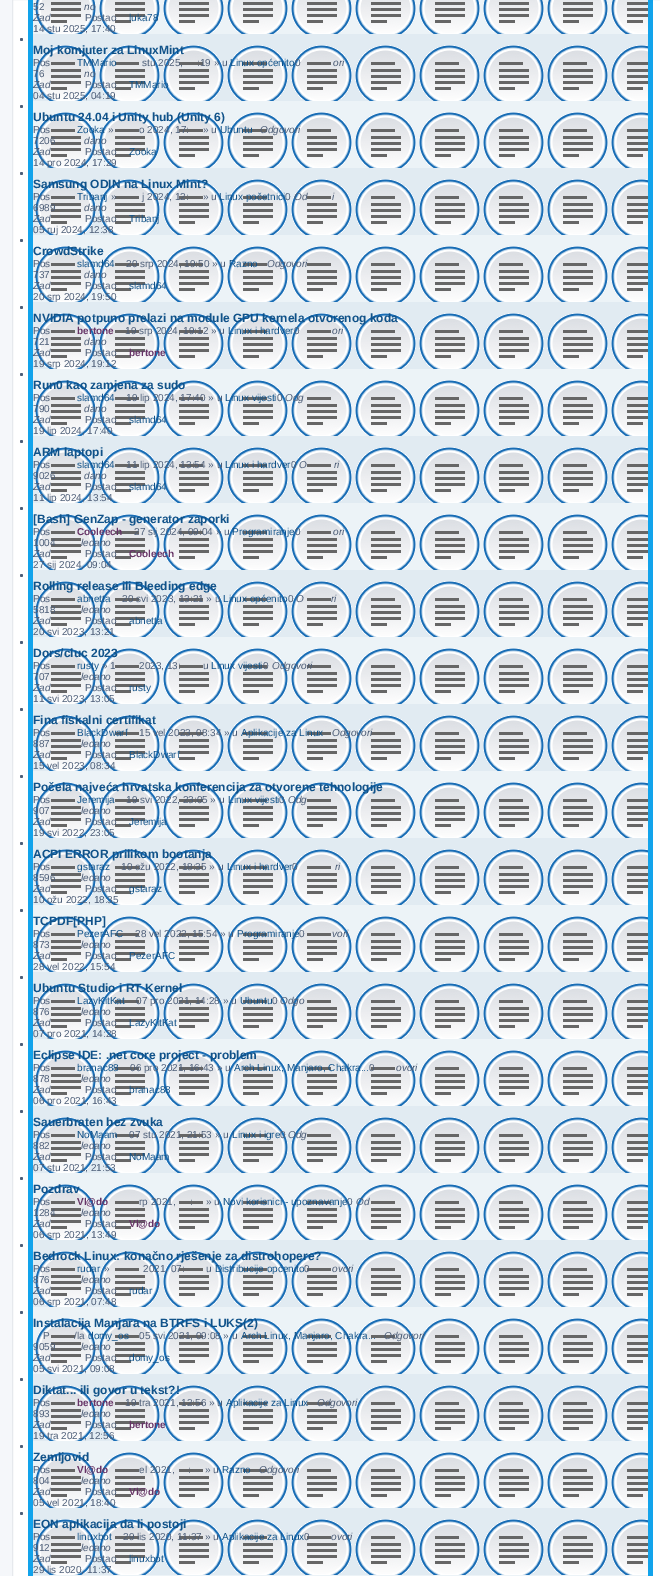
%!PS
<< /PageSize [660 1576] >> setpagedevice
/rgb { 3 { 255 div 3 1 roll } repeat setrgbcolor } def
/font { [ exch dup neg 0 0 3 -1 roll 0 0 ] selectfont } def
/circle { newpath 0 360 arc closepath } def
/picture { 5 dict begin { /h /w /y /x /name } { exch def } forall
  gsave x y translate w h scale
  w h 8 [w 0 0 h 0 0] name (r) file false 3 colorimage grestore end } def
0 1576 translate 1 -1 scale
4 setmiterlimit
245 247 250 rgb
0 0 660 1576 rectfill
255 255 255 rgb
12.5 -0.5 moveto 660.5 -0.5 lineto 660.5 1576.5 lineto 12.5 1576.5 lineto closepath gsave fill grestore
230 233 237 rgb
stroke
gsave 28 0 moveto 653 0 lineto 653 1576 lineto 28 1576 lineto closepath clip newpath
<< /ShadingType 2 /ColorSpace /DeviceRGB /Coords [340 -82 341 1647] /Extend [true true] /Function << /FunctionType 3 /Domain [0 1] /Functions [<< /FunctionType 2 /Domain [0 1] /C0 [0 0.463 0.694] /C1 [0.071 0.639 0.922] /N 1 >> << /FunctionType 2 /Domain [0 1] /C0 [0.071 0.639 0.922] /C1 [0.071 0.639 0.922] /N 1 >>] /Bounds [0.05] /Encode [0 1 0 1] >> >> shfill grestore
236 243 247 rgb
33 0 591 34 rectfill
(img/1.rgb) 35 0 613 34 picture
225 235 242 rgb
33 34 615 67 rectfill
76 93 119 rgb
21.5 39.5 1.5 circle fill
(img/2.rgb) 35 45 613 56 picture
236 243 247 rgb
33 101 615 67 rectfill
76 93 119 rgb
21.5 106.5 1.5 circle fill
(img/3.rgb) 35 112 613 56 picture
225 235 242 rgb
33 168 615 67 rectfill
76 93 119 rgb
21.5 173.5 1.5 circle fill
(img/2.rgb) 35 179 613 56 picture
236 243 247 rgb
33 235 615 67 rectfill
76 93 119 rgb
21.5 240.5 1.5 circle fill
(img/3.rgb) 35 246 613 56 picture
225 235 242 rgb
33 302 615 67 rectfill
76 93 119 rgb
21.5 307.5 1.5 circle fill
(img/2.rgb) 35 313 613 56 picture
236 243 247 rgb
33 369 615 67 rectfill
76 93 119 rgb
21.5 374.5 1.5 circle fill
(img/3.rgb) 35 380 613 56 picture
225 235 242 rgb
33 436 615 67 rectfill
76 93 119 rgb
21.5 441.5 1.5 circle fill
(img/2.rgb) 35 447 613 56 picture
236 243 247 rgb
33 503 615 67 rectfill
76 93 119 rgb
21.5 508.5 1.5 circle fill
(img/3.rgb) 35 514 613 56 picture
225 235 242 rgb
33 570 615 67 rectfill
76 93 119 rgb
21.5 575.5 1.5 circle fill
(img/2.rgb) 35 581 613 56 picture
236 243 247 rgb
33 637 615 67 rectfill
76 93 119 rgb
21.5 642.5 1.5 circle fill
(img/3.rgb) 35 648 613 56 picture
225 235 242 rgb
33 704 615 67 rectfill
76 93 119 rgb
21.5 709.5 1.5 circle fill
(img/2.rgb) 35 715 613 56 picture
236 243 247 rgb
33 771 615 67 rectfill
76 93 119 rgb
21.5 776.5 1.5 circle fill
(img/3.rgb) 35 782 613 56 picture
225 235 242 rgb
33 838 615 67 rectfill
76 93 119 rgb
21.5 843.5 1.5 circle fill
(img/2.rgb) 35 849 613 56 picture
236 243 247 rgb
33 905 615 67 rectfill
76 93 119 rgb
21.5 910.5 1.5 circle fill
(img/3.rgb) 35 916 613 56 picture
225 235 242 rgb
33 972 615 67 rectfill
76 93 119 rgb
21.5 977.5 1.5 circle fill
(img/2.rgb) 35 983 613 56 picture
236 243 247 rgb
33 1039 615 67 rectfill
76 93 119 rgb
21.5 1044.5 1.5 circle fill
(img/3.rgb) 35 1050 613 56 picture
225 235 242 rgb
33 1106 615 67 rectfill
76 93 119 rgb
21.5 1111.5 1.5 circle fill
(img/2.rgb) 35 1117 613 56 picture
236 243 247 rgb
33 1173 615 67 rectfill
76 93 119 rgb
21.5 1178.5 1.5 circle fill
(img/3.rgb) 35 1184 613 56 picture
225 235 242 rgb
33 1240 615 67 rectfill
76 93 119 rgb
21.5 1245.5 1.5 circle fill
(img/2.rgb) 35 1251 613 56 picture
236 243 247 rgb
33 1307 615 67 rectfill
76 93 119 rgb
21.5 1312.5 1.5 circle fill
(img/3.rgb) 35 1318 613 56 picture
225 235 242 rgb
33 1374 615 67 rectfill
76 93 119 rgb
21.5 1379.5 1.5 circle fill
(img/2.rgb) 35 1385 613 56 picture
236 243 247 rgb
33 1441 615 67 rectfill
76 93 119 rgb
21.5 1446.5 1.5 circle fill
(img/3.rgb) 35 1452 613 56 picture
225 235 242 rgb
33 1508 615 67 rectfill
76 93 119 rgb
21.5 1513.5 1.5 circle fill
(img/2.rgb) 35 1519 613 56 picture
236 243 247 rgb
33 1575 615 1 rectfill
/LiberationSans-Regular 10 font
76 93 119 rgb
33 10 moveto (52) show
/LiberationSans-Italic 10 font
84 10 moveto (no) show
33 21 moveto (Zad) show
/LiberationSans-Regular 10 font
85 21 moveto (Postao) show
16 82 137 rgb
129 21 moveto (luka78) show
76 93 119 rgb
33 32 moveto (14 stu 2025, 17:40) show
/LiberationSans-Bold 12 font
16 82 137 rgb
33 54 moveto (Moj komjuter za LinuxMint) show
/LiberationSans-Regular 10 font
76 93 119 rgb
33 66 moveto (Pos) show
16 82 137 rgb
77 66 moveto (TMMario) show
76 93 119 rgb
142 66 moveto (stu 2025,) show
197 66 moveto (:19 » u) show
16 82 137 rgb
230 66 moveto (Linux općenito) show
76 93 119 rgb
295 66 moveto (0) show
/LiberationSans-Italic 10 font
333 66 moveto (ori) show
/LiberationSans-Regular 10 font
33 77 moveto (76) show
/LiberationSans-Italic 10 font
84 77 moveto (no) show
33 88 moveto (Zad) show
/LiberationSans-Regular 10 font
85 88 moveto (Postao) show
16 82 137 rgb
129 88 moveto (TMMario) show
76 93 119 rgb
33 99 moveto (04 stu 2025, 04:19) show
/LiberationSans-Bold 12 font
16 82 137 rgb
33 121 moveto (Ubuntu 24.04 i Unity hub \(Unity 6\)) show
/LiberationSans-Regular 10 font
76 93 119 rgb
33 133 moveto (Pos) show
16 82 137 rgb
77 133 moveto (Zooka) show
76 93 119 rgb
[
  [(») 108 133]
  [(o 2024, 17:) 139 133]
  [(» u) 203 133]
] { aload pop moveto show } forall
16 82 137 rgb
220 133 moveto (Ubuntu) show
/LiberationSans-Italic 10 font
76 93 119 rgb
260 133 moveto (Odgovori) show
/LiberationSans-Regular 10 font
33 144 moveto (7206) show
/LiberationSans-Italic 10 font
84 144 moveto (dano) show
33 155 moveto (Zad) show
/LiberationSans-Regular 10 font
85 155 moveto (Postao) show
16 82 137 rgb
129 155 moveto (Zooka) show
76 93 119 rgb
33 166 moveto (14 pro 2024, 17:29) show
/LiberationSans-Bold 12 font
16 82 137 rgb
33 188 moveto (Samsung ODIN na Linux Mint?) show
/LiberationSans-Regular 10 font
76 93 119 rgb
33 200 moveto (Pos) show
16 82 137 rgb
77 200 moveto (Tribanj) show
76 93 119 rgb
[
  [(») 111 200]
  [(j 2024, 12:) 142 200]
  [(» u) 203 200]
] { aload pop moveto show } forall
16 82 137 rgb
219 200 moveto (Linux početnici) show
76 93 119 rgb
285 200 moveto (0) show
/LiberationSans-Italic 10 font
294 200 moveto (Od) show
332 200 moveto (i) show
/LiberationSans-Regular 10 font
33 211 moveto (6989) show
/LiberationSans-Italic 10 font
84 211 moveto (dano) show
33 222 moveto (Zad) show
/LiberationSans-Regular 10 font
85 222 moveto (Postao) show
16 82 137 rgb
129 222 moveto (Tribanj) show
76 93 119 rgb
33 233 moveto (05 ruj 2024, 12:38) show
/LiberationSans-Bold 12 font
16 82 137 rgb
33 255 moveto (CrowdStrike) show
/LiberationSans-Regular 10 font
76 93 119 rgb
33 267 moveto (Pos) show
16 82 137 rgb
77 267 moveto (slamd64) show
76 93 119 rgb
126 267 moveto (20 srp 2024, 19:50 » u) show
16 82 137 rgb
229 267 moveto (Razno) show
/LiberationSans-Italic 10 font
76 93 119 rgb
267 267 moveto (Odgovori) show
/LiberationSans-Regular 10 font
33 278 moveto (737) show
/LiberationSans-Italic 10 font
84 278 moveto (dano) show
33 289 moveto (Zad) show
/LiberationSans-Regular 10 font
85 289 moveto (Postao) show
16 82 137 rgb
129 289 moveto (slamd64) show
76 93 119 rgb
33 300 moveto (20 srp 2024, 19:50) show
/LiberationSans-Bold 12 font
16 82 137 rgb
33 322 moveto (NVIDIA potpuno prelazi na module GPU kernela otvorenog koda) show
/LiberationSans-Regular 10 font
76 93 119 rgb
33 334 moveto (Pos) show
/LiberationSans-Bold 10 font
102 51 102 rgb
77 334 moveto (bertone) show
/LiberationSans-Regular 10 font
76 93 119 rgb
125 334 moveto (19 srp 2024, 19:12 » u) show
16 82 137 rgb
228 334 moveto (Linux i hardver) show
76 93 119 rgb
294 334 moveto (0) show
/LiberationSans-Italic 10 font
332 334 moveto (ori) show
/LiberationSans-Regular 10 font
33 345 moveto (721) show
/LiberationSans-Italic 10 font
84 345 moveto (dano) show
33 356 moveto (Zad) show
/LiberationSans-Regular 10 font
85 356 moveto (Postao) show
/LiberationSans-Bold 10 font
102 51 102 rgb
129 356 moveto (bertone) show
/LiberationSans-Regular 10 font
76 93 119 rgb
33 367 moveto (19 srp 2024, 19:12) show
/LiberationSans-Bold 12 font
16 82 137 rgb
33 389 moveto (Run0 kao zamjena za sudo) show
/LiberationSans-Regular 10 font
76 93 119 rgb
33 401 moveto (Pos) show
16 82 137 rgb
77 401 moveto (slamd64) show
76 93 119 rgb
126 401 moveto (19 lip 2024, 17:40 » u) show
16 82 137 rgb
225 401 moveto (Linux vijesti) show
76 93 119 rgb
277 401 moveto (0) show
/LiberationSans-Italic 10 font
285 401 moveto (Odg) show
/LiberationSans-Regular 10 font
33 412 moveto (790) show
/LiberationSans-Italic 10 font
84 412 moveto (dano) show
33 423 moveto (Zad) show
/LiberationSans-Regular 10 font
85 423 moveto (Postao) show
16 82 137 rgb
129 423 moveto (slamd64) show
76 93 119 rgb
33 434 moveto (19 lip 2024, 17:40) show
/LiberationSans-Bold 12 font
16 82 137 rgb
33 456 moveto (ARM laptopi) show
/LiberationSans-Regular 10 font
76 93 119 rgb
33 468 moveto (Pos) show
16 82 137 rgb
77 468 moveto (slamd64) show
76 93 119 rgb
126 468 moveto (11 lip 2024, 13:54 » u) show
16 82 137 rgb
225 468 moveto (Linux i hardver) show
76 93 119 rgb
291 468 moveto (0) show
/LiberationSans-Italic 10 font
299 468 moveto (O) show
334 468 moveto (ri) show
/LiberationSans-Regular 10 font
33 479 moveto (9026) show
/LiberationSans-Italic 10 font
84 479 moveto (dano) show
33 490 moveto (Zad) show
/LiberationSans-Regular 10 font
85 490 moveto (Postao) show
16 82 137 rgb
129 490 moveto (slamd64) show
76 93 119 rgb
33 501 moveto (11 lip 2024, 13:54) show
/LiberationSans-Bold 12 font
16 82 137 rgb
33 523 moveto ([Bash] GenZap - generator zaporki) show
/LiberationSans-Regular 10 font
76 93 119 rgb
33 535 moveto (Pos) show
/LiberationSans-Bold 10 font
102 51 102 rgb
77 535 moveto (Cooleech) show
/LiberationSans-Regular 10 font
76 93 119 rgb
134 535 moveto (27 sij 2024, 09:04 » u) show
16 82 137 rgb
232 535 moveto (Programiranje) show
76 93 119 rgb
295 535 moveto (0) show
/LiberationSans-Italic 10 font
333 535 moveto (ori) show
/LiberationSans-Regular 10 font
33 546 moveto (1004) show
/LiberationSans-Italic 10 font
81 546 moveto (ledano) show
33 557 moveto (Zad) show
/LiberationSans-Regular 10 font
85 557 moveto (Postao) show
/LiberationSans-Bold 10 font
102 51 102 rgb
129 557 moveto (Cooleech) show
/LiberationSans-Regular 10 font
76 93 119 rgb
33 568 moveto (27 sij 2024, 09:04) show
/LiberationSans-Bold 12 font
16 82 137 rgb
33 590 moveto (Rolling release ili Bleeding edge) show
/LiberationSans-Regular 10 font
76 93 119 rgb
33 602 moveto (Pos) show
16 82 137 rgb
77 602 moveto (abnetta) show
76 93 119 rgb
122 602 moveto (20 svi 2023, 13:21 » u) show
16 82 137 rgb
223 602 moveto (Linux općenito) show
76 93 119 rgb
288 602 moveto (0) show
/LiberationSans-Italic 10 font
296 602 moveto (O) show
331 602 moveto (ri) show
/LiberationSans-Regular 10 font
33 613 moveto (5818) show
/LiberationSans-Italic 10 font
81 613 moveto (ledano) show
33 624 moveto (Zad) show
/LiberationSans-Regular 10 font
85 624 moveto (Postao) show
16 82 137 rgb
129 624 moveto (abnetta) show
76 93 119 rgb
33 635 moveto (20 svi 2023, 13:21) show
/LiberationSans-Bold 12 font
16 82 137 rgb
33 657 moveto (Dors/cluc 2023) show
/LiberationSans-Regular 10 font
76 93 119 rgb
33 669 moveto (Pos) show
16 82 137 rgb
77 669 moveto (rusty) show
76 93 119 rgb
[
  [(» 1) 102 669]
  [(2023, 13:) 139 669]
  [(u) 203 669]
] { aload pop moveto show } forall
16 82 137 rgb
211 669 moveto (Linux vijesti) show
76 93 119 rgb
263 669 moveto (0) show
/LiberationSans-Italic 10 font
272 669 moveto (Odgovori) show
/LiberationSans-Regular 10 font
33 680 moveto (707) show
/LiberationSans-Italic 10 font
81 680 moveto (ledano) show
33 691 moveto (Zad) show
/LiberationSans-Regular 10 font
85 691 moveto (Postao) show
16 82 137 rgb
129 691 moveto (rusty) show
76 93 119 rgb
33 702 moveto (11 svi 2023, 13:05) show
/LiberationSans-Bold 12 font
16 82 137 rgb
33 724 moveto (Fina fiskalni certifikat) show
/LiberationSans-Regular 10 font
76 93 119 rgb
33 736 moveto (Pos) show
16 82 137 rgb
77 736 moveto (BlackDwarf) show
76 93 119 rgb
139 736 moveto (15 vel 2023, 08:34 » u) show
16 82 137 rgb
241 736 moveto (Aplikacije za Linux) show
/LiberationSans-Italic 10 font
76 93 119 rgb
332 736 moveto (Odgovori) show
/LiberationSans-Regular 10 font
33 747 moveto (887) show
/LiberationSans-Italic 10 font
81 747 moveto (ledano) show
33 758 moveto (Zad) show
/LiberationSans-Regular 10 font
85 758 moveto (Postao) show
16 82 137 rgb
129 758 moveto (BlackDwarf) show
76 93 119 rgb
33 769 moveto (15 vel 2023, 08:34) show
/LiberationSans-Bold 12 font
16 82 137 rgb
33 791 moveto (Počela najveća hrvatska konferencija za otvorene tehnologije) show
/LiberationSans-Regular 10 font
76 93 119 rgb
33 803 moveto (Pos) show
16 82 137 rgb
77 803 moveto (Jeremija) show
76 93 119 rgb
126 803 moveto (19 svi 2022, 23:05 » u) show
16 82 137 rgb
228 803 moveto (Linux vijesti) show
76 93 119 rgb
279 803 moveto (0) show
/LiberationSans-Italic 10 font
288 803 moveto (Odg) show
/LiberationSans-Regular 10 font
33 814 moveto (907) show
/LiberationSans-Italic 10 font
81 814 moveto (ledano) show
33 825 moveto (Zad) show
/LiberationSans-Regular 10 font
85 825 moveto (Postao) show
16 82 137 rgb
129 825 moveto (Jeremija) show
76 93 119 rgb
33 836 moveto (19 svi 2022, 23:05) show
/LiberationSans-Bold 12 font
16 82 137 rgb
33 858 moveto (ACPI ERROR prilikom bootanja) show
/LiberationSans-Regular 10 font
76 93 119 rgb
33 870 moveto (Pos) show
16 82 137 rgb
77 870 moveto (gstaraz) show
76 93 119 rgb
121 870 moveto (10 ožu 2022, 18:35 » u) show
16 82 137 rgb
227 870 moveto (Linux i hardver) show
76 93 119 rgb
292 870 moveto (0) show
/LiberationSans-Italic 10 font
335 870 moveto (ri) show
/LiberationSans-Regular 10 font
33 881 moveto (8596) show
/LiberationSans-Italic 10 font
81 881 moveto (ledano) show
33 892 moveto (Zad) show
/LiberationSans-Regular 10 font
85 892 moveto (Postao) show
16 82 137 rgb
129 892 moveto (gstaraz) show
76 93 119 rgb
33 903 moveto (10 ožu 2022, 18:35) show
/LiberationSans-Bold 12 font
16 82 137 rgb
33 925 moveto (TCPDF[PHP]) show
/LiberationSans-Regular 10 font
76 93 119 rgb
33 937 moveto (Pos) show
16 82 137 rgb
77 937 moveto (PezerAFC) show
76 93 119 rgb
135 937 moveto (28 vel 2022, 15:54 » u) show
16 82 137 rgb
237 937 moveto (Programiranje) show
76 93 119 rgb
299 937 moveto (0) show
/LiberationSans-Italic 10 font
332 937 moveto (vori) show
/LiberationSans-Regular 10 font
33 948 moveto (873) show
/LiberationSans-Italic 10 font
81 948 moveto (ledano) show
33 959 moveto (Zad) show
/LiberationSans-Regular 10 font
85 959 moveto (Postao) show
16 82 137 rgb
129 959 moveto (PezerAFC) show
76 93 119 rgb
33 970 moveto (28 vel 2022, 15:54) show
/LiberationSans-Bold 12 font
16 82 137 rgb
33 992 moveto (Ubuntu Studio i RT Kernel) show
/LiberationSans-Regular 10 font
76 93 119 rgb
33 1004 moveto (Pos) show
16 82 137 rgb
77 1004 moveto (LazyKitKat) show
76 93 119 rgb
136 1004 moveto (07 pro 2021, 14:28 » u) show
16 82 137 rgb
240 1004 moveto (Ubuntu) show
76 93 119 rgb
272 1004 moveto (0) show
/LiberationSans-Italic 10 font
280 1004 moveto (Odgo) show
/LiberationSans-Regular 10 font
33 1015 moveto (876) show
/LiberationSans-Italic 10 font
81 1015 moveto (ledano) show
33 1026 moveto (Zad) show
/LiberationSans-Regular 10 font
85 1026 moveto (Postao) show
16 82 137 rgb
129 1026 moveto (LazyKitKat) show
76 93 119 rgb
33 1037 moveto (07 pro 2021, 14:28) show
/LiberationSans-Bold 12 font
16 82 137 rgb
33 1059 moveto (Eclipse IDE: .net core project - problem) show
/LiberationSans-Regular 10 font
76 93 119 rgb
33 1071 moveto (Pos) show
16 82 137 rgb
77 1071 moveto (branac88) show
76 93 119 rgb
130 1071 moveto (06 pro 2021, 16:43 » u) show
16 82 137 rgb
234 1071 moveto (Arch Linux, Manjaro, Chakra...) show
76 93 119 rgb
369 1071 moveto (0) show
/LiberationSans-Italic 10 font
396 1071 moveto (ovori) show
/LiberationSans-Regular 10 font
33 1082 moveto (878) show
/LiberationSans-Italic 10 font
81 1082 moveto (ledano) show
33 1093 moveto (Zad) show
/LiberationSans-Regular 10 font
85 1093 moveto (Postao) show
16 82 137 rgb
129 1093 moveto (branac88) show
76 93 119 rgb
33 1104 moveto (06 pro 2021, 16:43) show
/LiberationSans-Bold 12 font
16 82 137 rgb
33 1126 moveto (Sauerbraten bez zvuka) show
/LiberationSans-Regular 10 font
76 93 119 rgb
33 1138 moveto (Pos) show
16 82 137 rgb
77 1138 moveto (NoMaam) show
76 93 119 rgb
129 1138 moveto (07 stu 2021, 21:53 » u) show
16 82 137 rgb
232 1138 moveto (Linux i igre) show
76 93 119 rgb
280 1138 moveto (0) show
/LiberationSans-Italic 10 font
288 1138 moveto (Odg) show
/LiberationSans-Regular 10 font
33 1149 moveto (882) show
/LiberationSans-Italic 10 font
81 1149 moveto (ledano) show
33 1160 moveto (Zad) show
/LiberationSans-Regular 10 font
85 1160 moveto (Postao) show
16 82 137 rgb
129 1160 moveto (NoMaam) show
76 93 119 rgb
33 1171 moveto (07 stu 2021, 21:53) show
/LiberationSans-Bold 12 font
16 82 137 rgb
33 1193 moveto (Pozdrav) show
/LiberationSans-Regular 10 font
76 93 119 rgb
33 1205 moveto (Pos) show
/LiberationSans-Bold 10 font
102 51 102 rgb
77 1205 moveto (Vl@do) show
/LiberationSans-Regular 10 font
76 93 119 rgb
[
  [(rp 2021,) 139 1205]
  [(:) 190 1205]
  [(» u) 206 1205]
] { aload pop moveto show } forall
16 82 137 rgb
223 1205 moveto (Novi korisnici - upoznavanje) show
76 93 119 rgb
347 1205 moveto (0) show
/LiberationSans-Italic 10 font
356 1205 moveto (Od) show
/LiberationSans-Regular 10 font
33 1216 moveto (1284) show
/LiberationSans-Italic 10 font
81 1216 moveto (ledano) show
33 1227 moveto (Zad) show
/LiberationSans-Regular 10 font
85 1227 moveto (Postao) show
/LiberationSans-Bold 10 font
102 51 102 rgb
129 1227 moveto (Vl@do) show
/LiberationSans-Regular 10 font
76 93 119 rgb
33 1238 moveto (06 srp 2021, 13:49) show
/LiberationSans-Bold 12 font
16 82 137 rgb
33 1260 moveto (Bedrock Linux: konačno rješenje za distrohopere?) show
/LiberationSans-Regular 10 font
76 93 119 rgb
33 1272 moveto (Pos) show
16 82 137 rgb
77 1272 moveto (rudar) show
76 93 119 rgb
[
  [(») 104 1272]
  [(2021, 07:) 143 1272]
  [(u) 206 1272]
] { aload pop moveto show } forall
16 82 137 rgb
215 1272 moveto (Distribucije općenito) show
76 93 119 rgb
304 1272 moveto (0) show
/LiberationSans-Italic 10 font
332 1272 moveto (ovori) show
/LiberationSans-Regular 10 font
33 1283 moveto (876) show
/LiberationSans-Italic 10 font
81 1283 moveto (ledano) show
33 1294 moveto (Zad) show
/LiberationSans-Regular 10 font
85 1294 moveto (Postao) show
16 82 137 rgb
129 1294 moveto (rudar) show
76 93 119 rgb
33 1305 moveto (06 srp 2021, 07:48) show
/LiberationSans-Bold 12 font
16 82 137 rgb
33 1327 moveto (Instalacija Manjara na BTRFS i LUKS\(2\)) show
/LiberationSans-Regular 10 font
76 93 119 rgb
43 1339 moveto (P) show
74 1339 moveto (/la) show
16 82 137 rgb
88 1339 moveto (domy_os) show
76 93 119 rgb
139 1339 moveto (05 svi 2021, 09:08 » u) show
16 82 137 rgb
241 1339 moveto (Arch Linux, Manjaro, Chakra...) show
/LiberationSans-Italic 10 font
76 93 119 rgb
384 1339 moveto (Odgovori) show
/LiberationSans-Regular 10 font
33 1350 moveto (9059) show
/LiberationSans-Italic 10 font
81 1350 moveto (ledano) show
33 1361 moveto (Zad) show
/LiberationSans-Regular 10 font
85 1361 moveto (Postao) show
16 82 137 rgb
129 1361 moveto (domy_os) show
76 93 119 rgb
33 1372 moveto (05 svi 2021, 09:08) show
/LiberationSans-Bold 12 font
16 82 137 rgb
33 1394 moveto (Diktat... ili govor u tekst?!) show
/LiberationSans-Regular 10 font
76 93 119 rgb
33 1406 moveto (Pos) show
/LiberationSans-Bold 10 font
102 51 102 rgb
77 1406 moveto (bertone) show
/LiberationSans-Regular 10 font
76 93 119 rgb
125 1406 moveto (19 tra 2021, 12:56 » u) show
16 82 137 rgb
226 1406 moveto (Aplikacije za Linux) show
/LiberationSans-Italic 10 font
76 93 119 rgb
317 1406 moveto (Odgovori) show
/LiberationSans-Regular 10 font
33 1417 moveto (893) show
/LiberationSans-Italic 10 font
81 1417 moveto (ledano) show
33 1428 moveto (Zad) show
/LiberationSans-Regular 10 font
85 1428 moveto (Postao) show
/LiberationSans-Bold 10 font
102 51 102 rgb
129 1428 moveto (bertone) show
/LiberationSans-Regular 10 font
76 93 119 rgb
33 1439 moveto (19 tra 2021, 12:56) show
/LiberationSans-Bold 12 font
16 82 137 rgb
33 1461 moveto (Zemljovid) show
/LiberationSans-Regular 10 font
76 93 119 rgb
33 1473 moveto (Pos) show
/LiberationSans-Bold 10 font
102 51 102 rgb
77 1473 moveto (Vl@do) show
/LiberationSans-Regular 10 font
76 93 119 rgb
[
  [(el 2021,) 139 1473]
  [(:) 188 1473]
  [(» u) 205 1473]
] { aload pop moveto show } forall
16 82 137 rgb
222 1473 moveto (Razno) show
/LiberationSans-Italic 10 font
76 93 119 rgb
259 1473 moveto (Odgovori) show
/LiberationSans-Regular 10 font
33 1484 moveto (804) show
/LiberationSans-Italic 10 font
81 1484 moveto (ledano) show
33 1495 moveto (Zad) show
/LiberationSans-Regular 10 font
85 1495 moveto (Postao) show
/LiberationSans-Bold 10 font
102 51 102 rgb
129 1495 moveto (Vl@do) show
/LiberationSans-Regular 10 font
76 93 119 rgb
33 1506 moveto (05 vel 2021, 18:40) show
/LiberationSans-Bold 12 font
16 82 137 rgb
33 1528 moveto (EON aplikacija da li postoji) show
/LiberationSans-Regular 10 font
76 93 119 rgb
33 1540 moveto (Pos) show
16 82 137 rgb
77 1540 moveto (linuxbot) show
76 93 119 rgb
123 1540 moveto (29 lis 2020, 11:37 » u) show
16 82 137 rgb
222 1540 moveto (Aplikacije za Linux) show
76 93 119 rgb
304 1540 moveto (0) show
/LiberationSans-Italic 10 font
331 1540 moveto (ovori) show
/LiberationSans-Regular 10 font
33 1551 moveto (912) show
/LiberationSans-Italic 10 font
81 1551 moveto (ledano) show
33 1562 moveto (Zad) show
/LiberationSans-Regular 10 font
85 1562 moveto (Postao) show
16 82 137 rgb
129 1562 moveto (linuxbot) show
76 93 119 rgb
33 1573 moveto (29 lis 2020, 11:37) show
showpage
